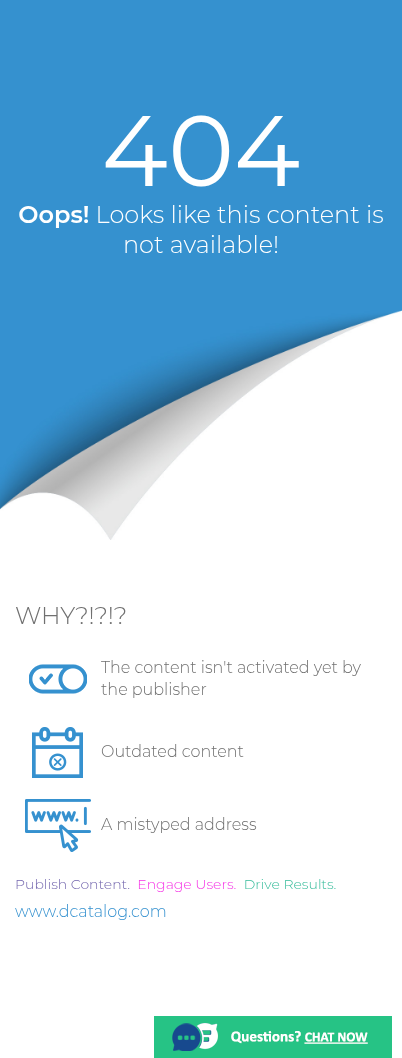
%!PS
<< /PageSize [402 1058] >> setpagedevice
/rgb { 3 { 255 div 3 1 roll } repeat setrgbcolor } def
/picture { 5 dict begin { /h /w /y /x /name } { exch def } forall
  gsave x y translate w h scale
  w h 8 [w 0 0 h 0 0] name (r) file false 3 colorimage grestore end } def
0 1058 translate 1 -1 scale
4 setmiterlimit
255 255 255 rgb
0 0 402 1058 rectfill
(img/1.rgb) 0 0 402 920 picture
(img/2.rgb) 154 1016 238 42 picture
showpage
